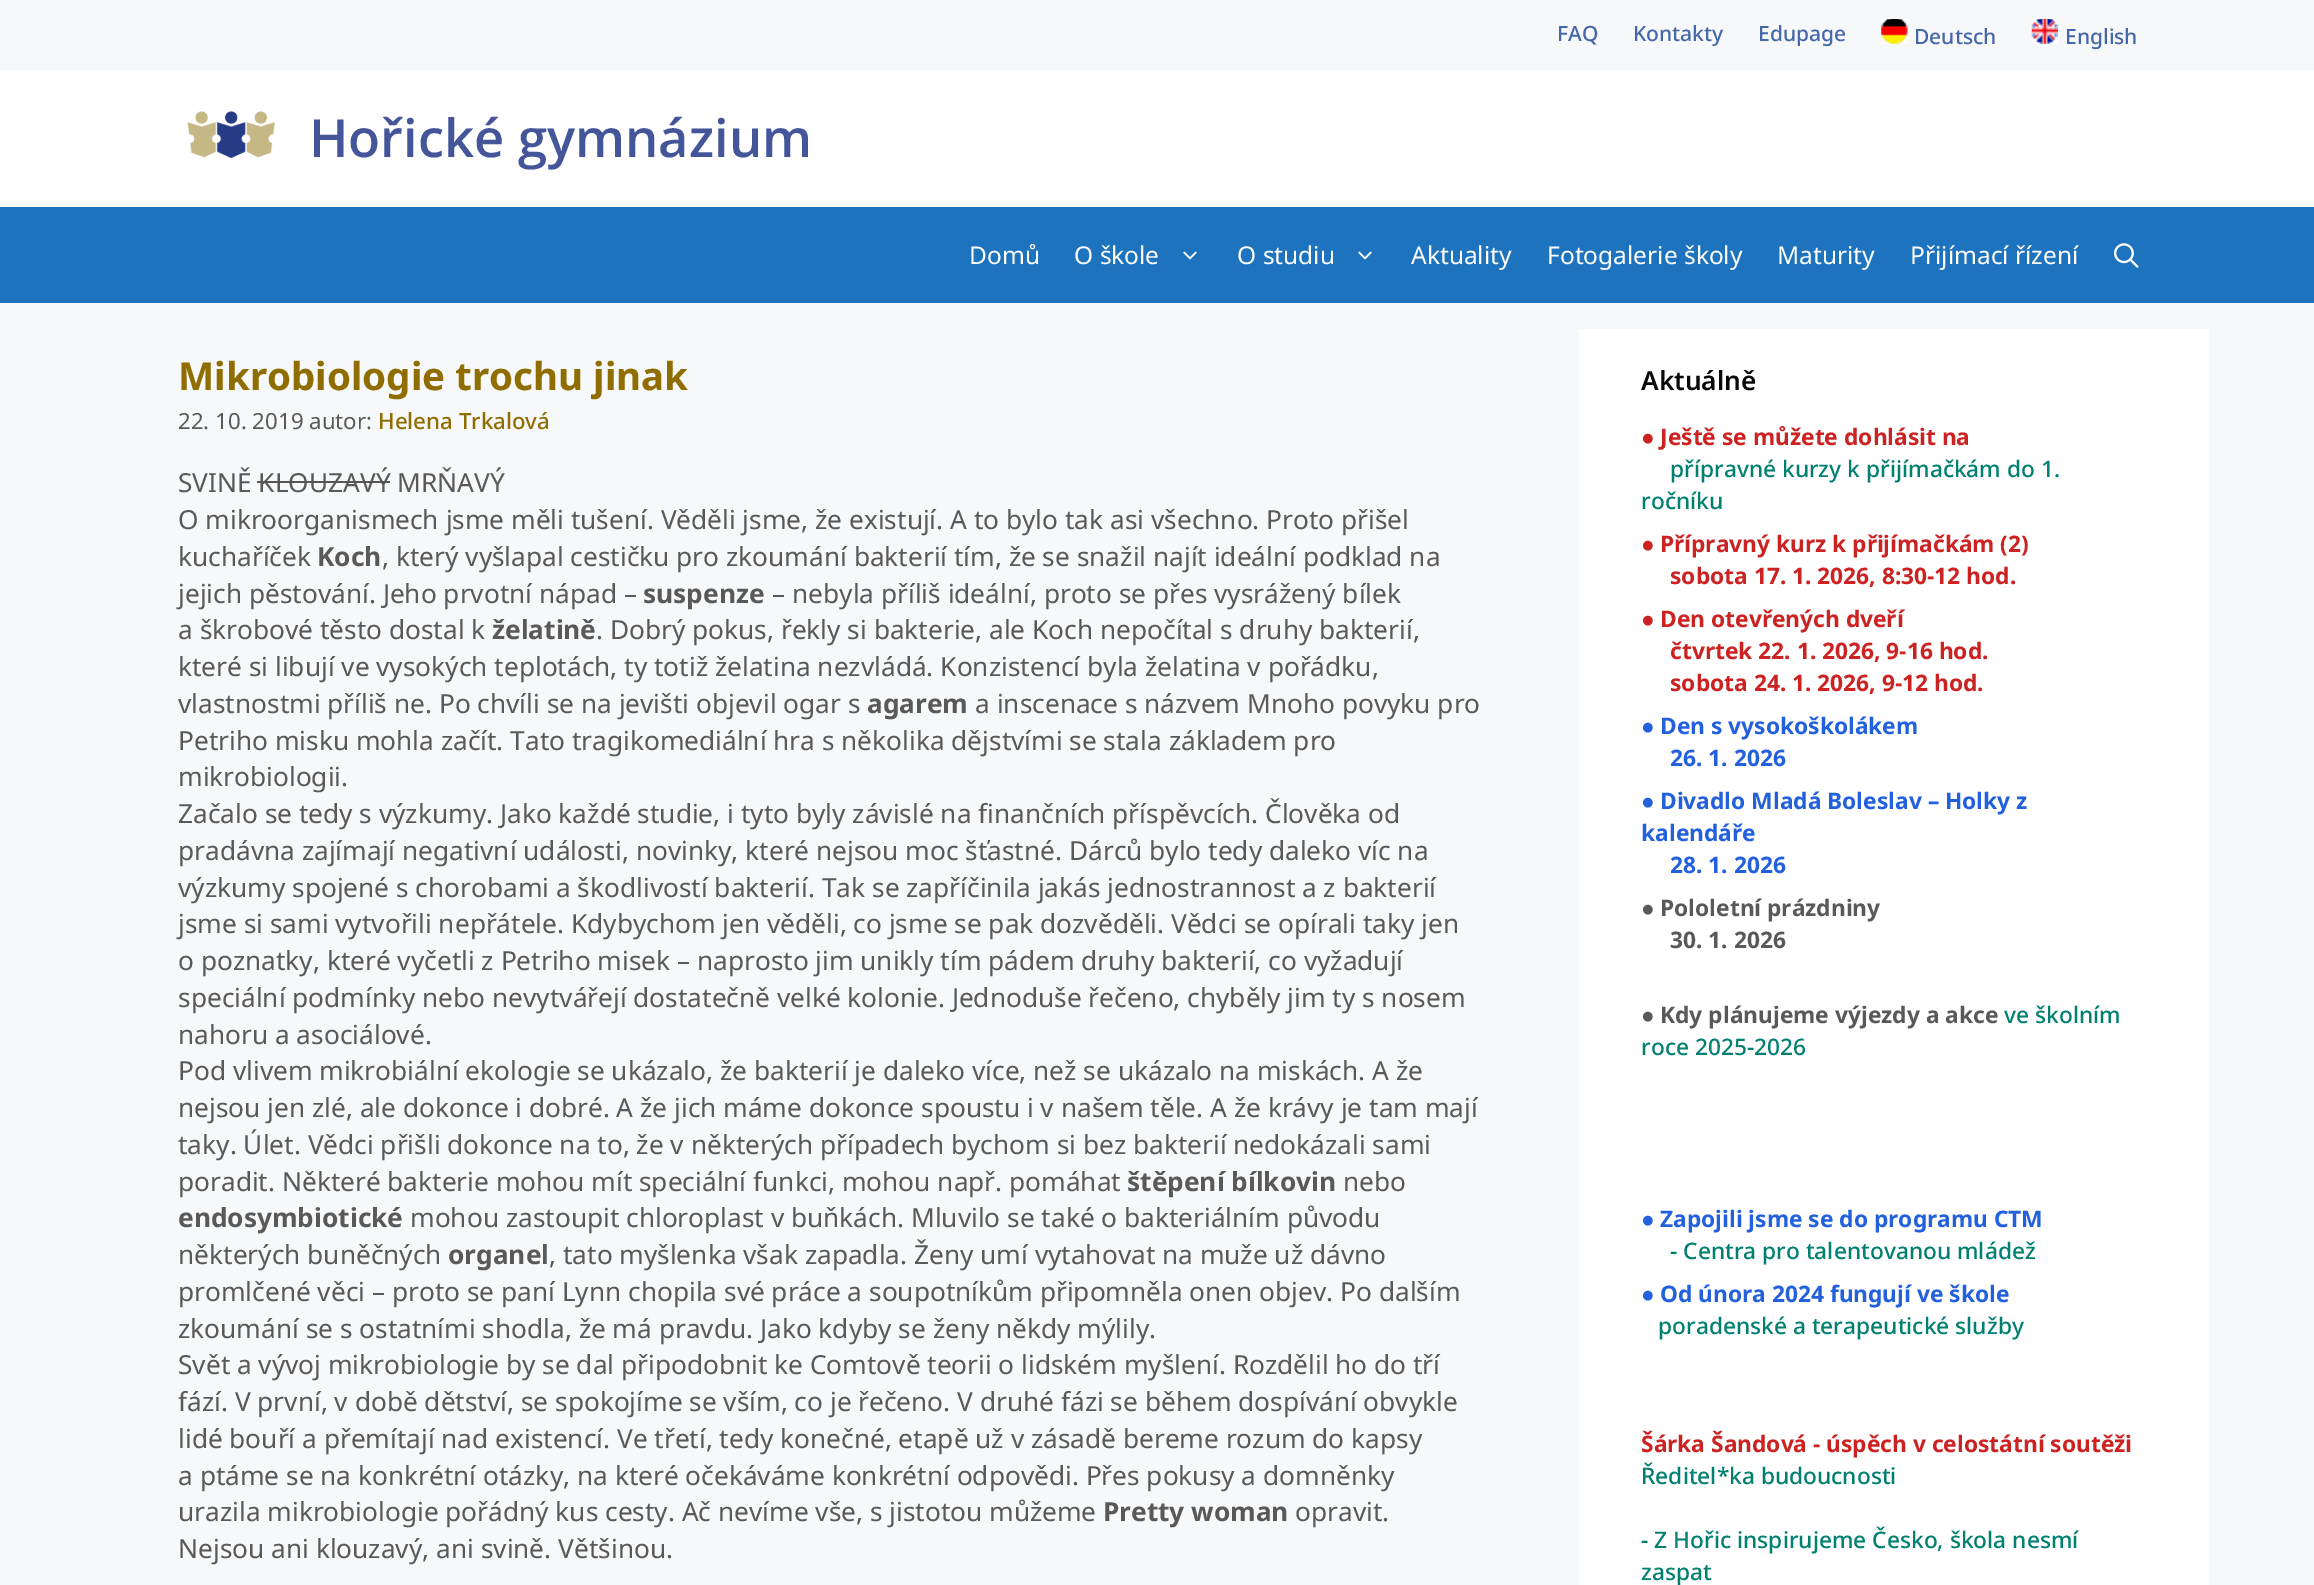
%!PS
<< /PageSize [2314 1585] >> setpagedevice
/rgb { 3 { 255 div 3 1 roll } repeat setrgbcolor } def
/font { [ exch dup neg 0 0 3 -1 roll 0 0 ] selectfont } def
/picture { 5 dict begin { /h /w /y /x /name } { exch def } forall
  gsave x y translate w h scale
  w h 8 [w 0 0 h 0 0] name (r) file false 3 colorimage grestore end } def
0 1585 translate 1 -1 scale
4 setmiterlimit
247 248 249 rgb
0 0 2314 1585 rectfill
(img/1.rgb) 1881 19 27 25 picture
(img/2.rgb) 2031 19 27 25 picture
255 255 255 rgb
0 70 2314 137 rectfill
(img/3.rgb) 187 111 88 48 picture
30 115 190 rgb
0 207 2314 96 rectfill
(img/4.rgb) 1183 251 14 9 picture
(img/4.rgb) 1358 251 14 9 picture
(img/5.rgb) 2114 243 25 25 picture
255 255 255 rgb
1579 329 630 1256 rectfill
/NotoSans-Medium 21 font
68 102 170 rgb
[
  [(FAQ) 1557 41]
  [(Kontakty) 1633 41]
  [(Edupage) 1758 41]
  [(Deutsch) 1914 44]
  [(English) 2065 44]
] { aload pop moveto show } forall
/OpenSans-SemiBold 52.5 font
68 85 153 rgb
309 157 moveto (Hořické gymnázium) show
/NotoSans-Regular 24.5 font
255 255 255 rgb
[
  [(Domů) 969 264]
  [(O škole) 1074 264]
  [(O studiu) 1237 264]
  [(Aktuality) 1411 264]
  [(Fotogalerie školy) 1547 264]
  [(Maturity) 1777 264]
  [(Přijímací řízení) 1910 264]
] { aload pop moveto show } forall
/NotoSans-Bold 38.5 font
144 109 0 rgb
178 390 moveto (Mikrobiologie trochu jinak) show
/NotoSans-Regular 22.25 font
89 89 89 rgb
178 429 moveto (22. 10. 2019 autor:) show
/NotoSans-Medium 22.25 font
144 109 0 rgb
378 429 moveto (Helena Trkalová) show
/NotoSans-Regular 26.25 font
89 89 89 rgb
178 492 moveto (SVINĚ KLOUZAVÝ MRŇAVÝ) show
85 85 85 rgb
257 481 133 2 rectfill
89 89 89 rgb
178 529 moveto (O mikroorganismech jsme měli tušení. Věděli jsme, že existují. A to bylo tak asi všechno. Proto přišel) show
178 566 moveto (kuchaříček) show
/NotoSans-Bold 26.25 font
317 566 moveto (Koch) show
/NotoSans-Regular 26.25 font
382 566 moveto (, který vyšlapal cestičku pro zkoumání bakterií tím, že se snažil najít ideální podklad na) show
178 603 moveto (jejich pěstování. Jeho prvotní nápad –) show
/NotoSans-Bold 26.25 font
643 603 moveto (suspenze) show
/NotoSans-Regular 26.25 font
772 603 moveto (– nebyla příliš ideální, proto se přes vysrážený bílek) show
178 639 moveto (a škrobové těsto dostal k) show
/NotoSans-Bold 26.25 font
492 639 moveto (želatině) show
/NotoSans-Regular 26.25 font
[
  [(. Dobrý pokus, řekly si bakterie, ale Koch nepočítal s druhy bakterií,) 596 639]
  [(které si libují ve vysokých teplotách, ty totiž želatina nezvládá. Konzistencí byla želatina v pořádku,) 178 676]
  [(vlastnostmi příliš ne. Po chvíli se na jevišti objevil ogar s) 178 713]
] { aload pop moveto show } forall
/NotoSans-Bold 26.25 font
867 713 moveto (agarem) show
/NotoSans-Regular 26.25 font
[
  [(a inscenace s názvem Mnoho povyku pro) 975 713]
  [(Petriho misku mohla začít. Tato tragikomediální hra s několika dějstvími se stala základem pro) 178 750]
  [(mikrobiologii.) 178 786]
  [(Začalo se tedy s výzkumy. Jako každé studie, i tyto byly závislé na finančních příspěvcích. Člověka od) 178 823]
  [(pradávna zajímají negativní události, novinky, které nejsou moc šťastné. Dárců bylo tedy daleko víc na) 178 860]
  [(výzkumy spojené s chorobami a škodlivostí bakterií. Tak se zapříčinila jakás jednostrannost a z bakterií) 178 897]
  [(jsme si sami vytvořili nepřátele. Kdybychom jen věděli, co jsme se pak dozvěděli. Vědci se opírali taky jen) 178 933]
  [(o poznatky, které vyčetli z Petriho misek – naprosto jim unikly tím pádem druhy bakterií, co vyžadují) 178 970]
  [(speciální podmínky nebo nevytvářejí dostatečně velké kolonie. Jednoduše řečeno, chyběly jim ty s nosem) 178 1007]
  [(nahoru a asociálové.) 178 1044]
  [(Pod vlivem mikrobiální ekologie se ukázalo, že bakterií je daleko více, než se ukázalo na miskách. A že) 178 1080]
  [(nejsou jen zlé, ale dokonce i dobré. A že jich máme dokonce spoustu i v našem těle. A že krávy je tam mají) 178 1117]
  [(taky. Úlet. Vědci přišli dokonce na to, že v některých případech bychom si bez bakterií nedokázali sami) 178 1154]
  [(poradit. Některé bakterie mohou mít speciální funkci, mohou např. pomáhat) 178 1191]
] { aload pop moveto show } forall
/NotoSans-Bold 26.25 font
1127 1191 moveto (štěpení bílkovin) show
/NotoSans-Regular 26.25 font
1343 1191 moveto (nebo) show
/NotoSans-Bold 26.25 font
178 1227 moveto (endosymbiotické) show
/NotoSans-Regular 26.25 font
410 1227 moveto (mohou zastoupit chloroplast v buňkách. Mluvilo se také o bakteriálním původu) show
178 1264 moveto (některých buněčných) show
/NotoSans-Bold 26.25 font
448 1264 moveto (organel) show
/NotoSans-Regular 26.25 font
[
  [(, tato myšlenka však zapadla. Ženy umí vytahovat na muže už dávno) 549 1264]
  [(promlčené věci – proto se paní Lynn chopila své práce a soupotníkům připomněla onen objev. Po dalším) 178 1301]
  [(zkoumání se s ostatními shodla, že má pravdu. Jako kdyby se ženy někdy mýlily.) 178 1338]
  [(Svět a vývoj mikrobiologie by se dal připodobnit ke Comtově teorii o lidském myšlení. Rozdělil ho do tří) 178 1374]
  [(fází. V první, v době dětství, se spokojíme se vším, co je řečeno. V druhé fázi se během dospívání obvykle) 178 1411]
  [(lidé bouří a přemítají nad existencí. Ve třetí, tedy konečné, etapě už v zásadě bereme rozum do kapsy) 178 1448]
  [(a ptáme se na konkrétní otázky, na které očekáváme konkrétní odpovědi. Přes pokusy a domněnky) 178 1485]
  [(urazila mikrobiologie pořádný kus cesty. Ač nevíme vše, s jistotou můžeme) 178 1521]
] { aload pop moveto show } forall
/NotoSans-Bold 26.25 font
1103 1521 moveto (Pretty woman) show
/NotoSans-Regular 26.25 font
1295 1521 moveto (opravit.) show
178 1558 moveto (Nejsou ani klouzavý, ani svině. Většinou.) show
/NotoSans-SemiBold 26.25 font
10 10 10 rgb
1641 390 moveto (Aktuálně) show
/LiberationSans-Bold 22.75 font
204 34 34 rgb
1641 445 moveto (●) show
/NotoSans-Bold 22.75 font
1660 445 moveto (Ještě se můžete dohlásit na) show
/NotoSans-Medium 22.75 font
0 128 112 rgb
1670 477 moveto (přípravné kurzy k přijímačkám do 1.) show
1641 509 moveto (ročníku) show
/LiberationSans-Bold 22.75 font
204 34 34 rgb
1641 552 moveto (●) show
/NotoSans-Bold 22.75 font
1660 552 moveto (Přípravný kurz k přijímačkám \(2\)) show
1670 584 moveto (sobota 17. 1. 2026, 8:30-12 hod.) show
/LiberationSans-Bold 22.75 font
1641 627 moveto (●) show
/NotoSans-Bold 22.75 font
[
  [(Den otevřených dveří) 1660 627]
  [(čtvrtek 22. 1. 2026, 9-16 hod.) 1670 659]
  [(sobota 24. 1. 2026, 9-12 hod.) 1670 691]
] { aload pop moveto show } forall
/LiberationSans-Bold 22.75 font
34 96 221 rgb
1641 734 moveto (●) show
/NotoSans-Bold 22.75 font
1660 734 moveto (Den s vysokoškolákem) show
1670 766 moveto (26. 1. 2026) show
/LiberationSans-Bold 22.75 font
1641 809 moveto (●) show
/NotoSans-Bold 22.75 font
[
  [(Divadlo Mladá Boleslav – Holky z) 1660 809]
  [(kalendáře) 1641 841]
  [(28. 1. 2026) 1670 873]
] { aload pop moveto show } forall
/LiberationSans-Bold 22.75 font
89 89 89 rgb
1641 916 moveto (●) show
/NotoSans-Bold 22.75 font
1660 916 moveto (Pololetní prázdniny) show
1670 948 moveto (30. 1. 2026) show
/LiberationSans-Bold 22.75 font
1641 1023 moveto (●) show
/NotoSans-Bold 22.75 font
1660 1023 moveto (Kdy plánujeme výjezdy a akce) show
/NotoSans-Medium 22.75 font
0 128 112 rgb
2004 1023 moveto (ve školním) show
1641 1055 moveto (roce 2025-2026) show
/LiberationSans-Bold 22.75 font
34 96 221 rgb
1641 1227 moveto (●) show
/NotoSans-Bold 22.75 font
1660 1227 moveto (Zapojili jsme se do programu CTM) show
/NotoSans-Medium 22.75 font
0 128 112 rgb
1670 1259 moveto (- Centra pro talentovanou mládež) show
/LiberationSans-Bold 22.75 font
34 96 221 rgb
1641 1302 moveto (●) show
/NotoSans-Bold 22.75 font
1660 1302 moveto (Od února 2024 fungují ve škole) show
/NotoSans-Medium 22.75 font
0 128 112 rgb
1658 1334 moveto (poradenské a terapeutické služby) show
/NotoSans-Bold 22.75 font
204 34 34 rgb
1641 1452 moveto (Šárka Šandová - úspěch v celostátní soutěži) show
/NotoSans-Medium 22.75 font
0 128 112 rgb
[
  [(Ředitel*ka budoucnosti) 1641 1484]
  [(- Z Hořic inspirujeme Česko, škola nesmí) 1641 1548]
  [(zaspat) 1641 1580]
] { aload pop moveto show } forall
showpage
